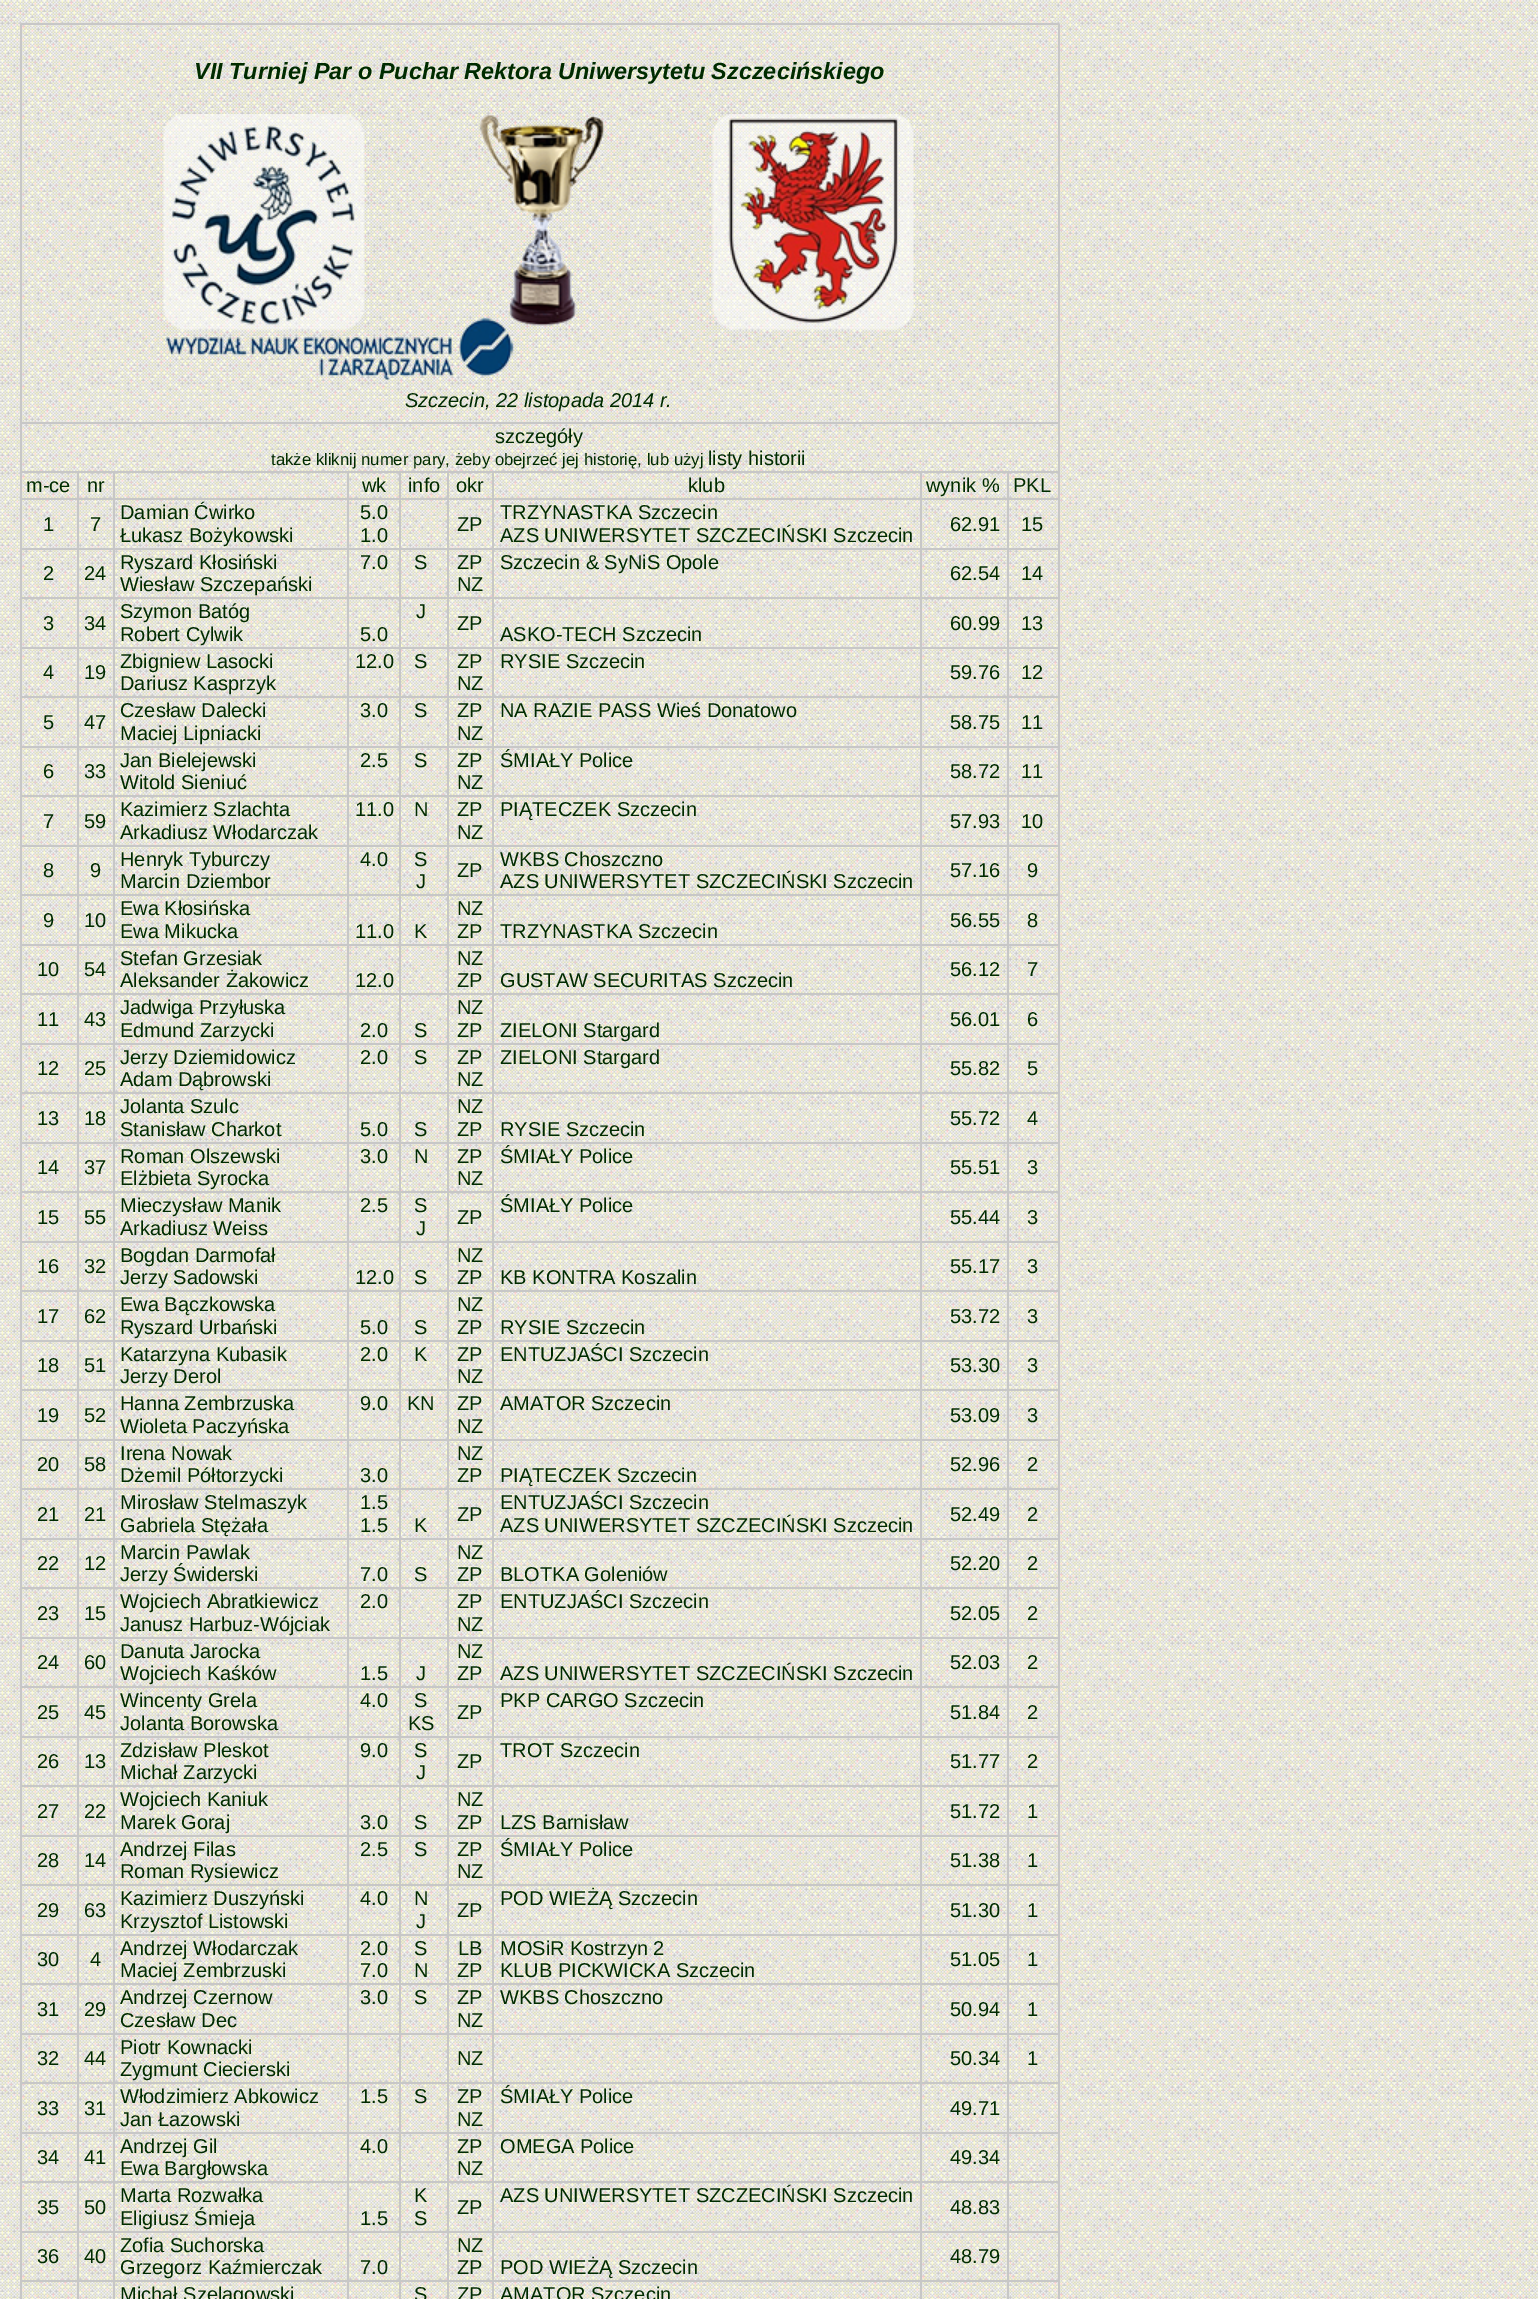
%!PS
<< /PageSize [1538 2299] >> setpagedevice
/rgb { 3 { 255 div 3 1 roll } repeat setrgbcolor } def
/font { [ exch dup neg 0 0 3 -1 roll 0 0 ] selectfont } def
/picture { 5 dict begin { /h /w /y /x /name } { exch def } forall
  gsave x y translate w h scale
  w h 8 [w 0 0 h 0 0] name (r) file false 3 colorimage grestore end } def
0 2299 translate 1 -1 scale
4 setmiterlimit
255 255 255 rgb
0 0 1538 2299 rectfill
(img/1.rgb) 0 0 1538 2299 picture
[
  [21 23 1038 2 199 199 199]
  [20 24 2 399 199 199 199]
  [1058 24 2 399 199 199 199]
  [21 422 1038 2 199 199 199]
] { aload pop rgb rectfill } forall
(img/2.rgb) 163 114 751 266 picture
[
  [20 423 2 126 199 199 199]
  [1058 423 2 126 199 199 199]
  [21 471 1038 2 199 199 199]
  [77 473 2 76 199 199 199]
  [21 498 57 2 199 199 199]
  [113 473 2 76 199 199 199]
  [78 498 36 2 199 199 199]
  [347 473 2 76 199 199 199]
  [114 498 234 2 199 199 199]
  [399 473 2 76 199 199 199]
  [348 498 53 2 199 199 199]
  [447 473 2 76 199 199 199]
  [401 498 48 2 199 199 199]
  [492 473 2 76 199 199 199]
  [449 498 45 2 199 199 199]
  [920 473 2 76 199 199 199]
  [494 498 427 2 199 199 199]
  [1007 473 2 76 199 199 199]
  [921 498 138 2 199 199 199]
  [21 548 1038 2 199 199 199]
  [20 549 2 99 199 199 199]
  [77 549 2 99 199 199 199]
  [21 597 57 2 199 199 199]
  [113 549 2 99 199 199 199]
  [78 597 36 2 199 199 199]
  [347 549 2 99 199 199 199]
  [114 597 234 2 199 199 199]
  [399 549 2 99 199 199 199]
  [348 597 53 2 199 199 199]
  [447 549 2 99 199 199 199]
  [401 597 48 2 199 199 199]
  [492 549 2 99 199 199 199]
  [449 597 45 2 199 199 199]
  [920 549 2 99 199 199 199]
  [494 597 427 2 199 199 199]
  [1007 549 2 99 199 199 199]
  [921 597 87 2 199 199 199]
  [1058 549 2 99 199 199 199]
  [1008 597 51 2 199 199 199]
  [21 647 1038 2 199 199 199]
  [20 648 2 99 199 199 199]
  [77 648 2 99 199 199 199]
  [21 696 57 2 199 199 199]
  [113 648 2 99 199 199 199]
  [78 696 36 2 199 199 199]
  [347 648 2 99 199 199 199]
  [114 696 234 2 199 199 199]
  [399 648 2 99 199 199 199]
  [348 696 53 2 199 199 199]
  [447 648 2 99 199 199 199]
  [401 696 48 2 199 199 199]
  [492 648 2 99 199 199 199]
  [449 696 45 2 199 199 199]
  [920 648 2 99 199 199 199]
  [494 696 427 2 199 199 199]
  [1007 648 2 99 199 199 199]
  [921 696 87 2 199 199 199]
  [1058 648 2 99 199 199 199]
  [1008 696 51 2 199 199 199]
  [21 746 1038 2 199 199 199]
  [20 747 2 99 199 199 199]
  [77 747 2 99 199 199 199]
  [21 795 57 2 199 199 199]
  [113 747 2 99 199 199 199]
  [78 795 36 2 199 199 199]
  [347 747 2 99 199 199 199]
  [114 795 234 2 199 199 199]
  [399 747 2 99 199 199 199]
  [348 795 53 2 199 199 199]
  [447 747 2 99 199 199 199]
  [401 795 48 2 199 199 199]
  [492 747 2 99 199 199 199]
  [449 795 45 2 199 199 199]
  [920 747 2 99 199 199 199]
  [494 795 427 2 199 199 199]
  [1007 747 2 99 199 199 199]
  [921 795 87 2 199 199 199]
  [1058 747 2 99 199 199 199]
  [1008 795 51 2 199 199 199]
  [21 845 1038 2 199 199 199]
  [20 846 2 99 199 199 199]
  [77 846 2 99 199 199 199]
  [21 894 57 2 199 199 199]
  [113 846 2 99 199 199 199]
  [78 894 36 2 199 199 199]
  [347 846 2 99 199 199 199]
  [114 894 234 2 199 199 199]
  [399 846 2 99 199 199 199]
  [348 894 53 2 199 199 199]
  [447 846 2 99 199 199 199]
  [401 894 48 2 199 199 199]
  [492 846 2 99 199 199 199]
  [449 894 45 2 199 199 199]
  [920 846 2 99 199 199 199]
  [494 894 427 2 199 199 199]
  [1007 846 2 99 199 199 199]
  [921 894 87 2 199 199 199]
  [1058 846 2 99 199 199 199]
  [1008 894 51 2 199 199 199]
  [21 944 1038 2 199 199 199]
  [20 945 2 99 199 199 199]
  [77 945 2 99 199 199 199]
  [21 993 57 2 199 199 199]
  [113 945 2 99 199 199 199]
  [78 993 36 2 199 199 199]
  [347 945 2 99 199 199 199]
  [114 993 234 2 199 199 199]
  [447 945 2 99 199 199 199]
  [401 993 48 2 199 199 199]
  [492 945 2 99 199 199 199]
  [449 993 45 2 199 199 199]
  [1007 945 2 99 199 199 199]
  [920 945 2 99 199 199 199]
  [921 993 87 2 199 199 199]
  [1058 945 2 99 199 199 199]
  [1008 993 51 2 199 199 199]
  [399 945 2 99 199 199 199]
  [348 993 53 2 199 199 199]
  [494 993 427 2 199 199 199]
  [21 1043 1038 2 199 199 199]
  [20 1044 2 99 199 199 199]
  [77 1044 2 99 199 199 199]
  [21 1092 57 2 199 199 199]
  [113 1044 2 99 199 199 199]
  [78 1092 36 2 199 199 199]
  [347 1044 2 99 199 199 199]
  [114 1092 234 2 199 199 199]
  [399 1044 2 99 199 199 199]
  [348 1092 53 2 199 199 199]
  [447 1044 2 99 199 199 199]
  [401 1092 48 2 199 199 199]
  [492 1044 2 99 199 199 199]
  [449 1092 45 2 199 199 199]
  [920 1044 2 99 199 199 199]
  [494 1092 427 2 199 199 199]
  [1007 1044 2 99 199 199 199]
  [921 1092 87 2 199 199 199]
  [1058 1044 2 99 199 199 199]
  [1008 1092 51 2 199 199 199]
  [21 1142 1038 2 199 199 199]
  [20 1143 2 99 199 199 199]
  [77 1143 2 99 199 199 199]
  [21 1191 57 2 199 199 199]
  [113 1143 2 99 199 199 199]
  [78 1191 36 2 199 199 199]
  [347 1143 2 99 199 199 199]
  [114 1191 234 2 199 199 199]
  [399 1143 2 99 199 199 199]
  [348 1191 53 2 199 199 199]
  [447 1143 2 99 199 199 199]
  [401 1191 48 2 199 199 199]
  [492 1143 2 99 199 199 199]
  [449 1191 45 2 199 199 199]
  [920 1143 2 99 199 199 199]
  [494 1191 427 2 199 199 199]
  [1007 1143 2 99 199 199 199]
  [921 1191 87 2 199 199 199]
  [1058 1143 2 99 199 199 199]
  [1008 1191 51 2 199 199 199]
  [21 1241 1038 2 199 199 199]
  [20 1242 2 99 199 199 199]
  [77 1242 2 99 199 199 199]
  [21 1290 57 2 199 199 199]
  [113 1242 2 99 199 199 199]
  [78 1290 36 2 199 199 199]
  [347 1242 2 99 199 199 199]
  [114 1290 234 2 199 199 199]
  [492 1242 2 99 199 199 199]
  [449 1290 45 2 199 199 199]
  [1007 1242 2 99 199 199 199]
  [920 1242 2 99 199 199 199]
  [921 1290 87 2 199 199 199]
  [1058 1242 2 99 199 199 199]
  [1008 1290 51 2 199 199 199]
  [399 1242 2 99 199 199 199]
  [348 1290 53 2 199 199 199]
  [447 1242 2 99 199 199 199]
  [401 1290 48 2 199 199 199]
  [494 1290 427 2 199 199 199]
  [21 1340 1038 2 199 199 199]
  [20 1341 2 99 199 199 199]
  [77 1341 2 99 199 199 199]
  [21 1389 57 2 199 199 199]
  [113 1341 2 99 199 199 199]
  [78 1389 36 2 199 199 199]
  [347 1341 2 99 199 199 199]
  [114 1389 234 2 199 199 199]
  [399 1341 2 99 199 199 199]
  [348 1389 53 2 199 199 199]
  [447 1341 2 99 199 199 199]
  [401 1389 48 2 199 199 199]
  [492 1341 2 99 199 199 199]
  [449 1389 45 2 199 199 199]
  [920 1341 2 99 199 199 199]
  [494 1389 427 2 199 199 199]
  [1007 1341 2 99 199 199 199]
  [921 1389 87 2 199 199 199]
  [1058 1341 2 99 199 199 199]
  [1008 1389 51 2 199 199 199]
  [21 1439 1038 2 199 199 199]
  [20 1440 2 99 199 199 199]
  [77 1440 2 99 199 199 199]
  [21 1488 57 2 199 199 199]
  [113 1440 2 99 199 199 199]
  [78 1488 36 2 199 199 199]
  [347 1440 2 99 199 199 199]
  [114 1488 234 2 199 199 199]
  [447 1440 2 99 199 199 199]
  [401 1488 48 2 199 199 199]
  [492 1440 2 99 199 199 199]
  [449 1488 45 2 199 199 199]
  [1007 1440 2 99 199 199 199]
  [920 1440 2 99 199 199 199]
  [921 1488 87 2 199 199 199]
  [1058 1440 2 99 199 199 199]
  [1008 1488 51 2 199 199 199]
  [399 1440 2 99 199 199 199]
  [348 1488 53 2 199 199 199]
  [494 1488 427 2 199 199 199]
  [21 1538 1038 2 199 199 199]
  [20 1539 2 99 199 199 199]
  [77 1539 2 99 199 199 199]
  [21 1587 57 2 199 199 199]
  [113 1539 2 99 199 199 199]
  [78 1587 36 2 199 199 199]
  [347 1539 2 99 199 199 199]
  [114 1587 234 2 199 199 199]
  [492 1539 2 99 199 199 199]
  [449 1587 45 2 199 199 199]
  [1007 1539 2 99 199 199 199]
  [920 1539 2 99 199 199 199]
  [921 1587 87 2 199 199 199]
  [1058 1539 2 99 199 199 199]
  [1008 1587 51 2 199 199 199]
  [399 1539 2 99 199 199 199]
  [348 1587 53 2 199 199 199]
  [447 1539 2 99 199 199 199]
  [401 1587 48 2 199 199 199]
  [494 1587 427 2 199 199 199]
  [21 1637 1038 2 199 199 199]
  [20 1638 2 99 199 199 199]
  [77 1638 2 99 199 199 199]
  [21 1686 57 2 199 199 199]
  [113 1638 2 99 199 199 199]
  [78 1686 36 2 199 199 199]
  [347 1638 2 99 199 199 199]
  [114 1686 234 2 199 199 199]
  [399 1638 2 99 199 199 199]
  [348 1686 53 2 199 199 199]
  [447 1638 2 99 199 199 199]
  [401 1686 48 2 199 199 199]
  [492 1638 2 99 199 199 199]
  [449 1686 45 2 199 199 199]
  [920 1638 2 99 199 199 199]
  [494 1686 427 2 199 199 199]
  [1007 1638 2 99 199 199 199]
  [921 1686 87 2 199 199 199]
  [1058 1638 2 99 199 199 199]
  [1008 1686 51 2 199 199 199]
  [21 1736 1038 2 199 199 199]
  [20 1737 2 99 199 199 199]
  [77 1737 2 99 199 199 199]
  [21 1785 57 2 199 199 199]
  [113 1737 2 99 199 199 199]
  [78 1785 36 2 199 199 199]
  [347 1737 2 99 199 199 199]
  [114 1785 234 2 199 199 199]
  [399 1737 2 99 199 199 199]
  [348 1785 53 2 199 199 199]
  [447 1737 2 99 199 199 199]
  [401 1785 48 2 199 199 199]
  [492 1737 2 99 199 199 199]
  [449 1785 45 2 199 199 199]
  [920 1737 2 99 199 199 199]
  [494 1785 427 2 199 199 199]
  [1007 1737 2 99 199 199 199]
  [921 1785 87 2 199 199 199]
  [1058 1737 2 99 199 199 199]
  [1008 1785 51 2 199 199 199]
  [21 1835 1038 2 199 199 199]
  [20 1836 2 99 199 199 199]
  [77 1836 2 99 199 199 199]
  [21 1884 57 2 199 199 199]
  [113 1836 2 99 199 199 199]
  [78 1884 36 2 199 199 199]
  [347 1836 2 99 199 199 199]
  [114 1884 234 2 199 199 199]
  [399 1836 2 99 199 199 199]
  [348 1884 53 2 199 199 199]
  [447 1836 2 99 199 199 199]
  [401 1884 48 2 199 199 199]
  [492 1836 2 99 199 199 199]
  [449 1884 45 2 199 199 199]
  [920 1836 2 99 199 199 199]
  [494 1884 427 2 199 199 199]
  [1007 1836 2 99 199 199 199]
  [921 1884 87 2 199 199 199]
  [1058 1836 2 99 199 199 199]
  [1008 1884 51 2 199 199 199]
  [21 1934 1038 2 199 199 199]
  [20 1935 2 99 199 199 199]
  [77 1935 2 99 199 199 199]
  [21 1983 57 2 199 199 199]
  [113 1935 2 99 199 199 199]
  [78 1983 36 2 199 199 199]
  [347 1935 2 99 199 199 199]
  [114 1983 234 2 199 199 199]
  [399 1935 2 99 199 199 199]
  [348 1983 53 2 199 199 199]
  [447 1935 2 99 199 199 199]
  [401 1983 48 2 199 199 199]
  [492 1935 2 99 199 199 199]
  [449 1983 45 2 199 199 199]
  [920 1935 2 99 199 199 199]
  [494 1983 427 2 199 199 199]
  [1007 1935 2 99 199 199 199]
  [921 1983 87 2 199 199 199]
  [1058 1935 2 99 199 199 199]
  [1008 1983 51 2 199 199 199]
  [21 2033 1038 2 199 199 199]
  [20 2034 2 99 199 199 199]
  [77 2034 2 99 199 199 199]
  [21 2082 57 2 199 199 199]
  [113 2034 2 99 199 199 199]
  [78 2082 36 2 199 199 199]
  [347 2034 2 99 199 199 199]
  [114 2082 234 2 199 199 199]
  [399 2034 2 99 199 199 199]
  [348 2082 53 2 199 199 199]
  [447 2034 2 99 199 199 199]
  [401 2082 48 2 199 199 199]
  [492 2034 2 99 199 199 199]
  [449 2082 45 2 199 199 199]
  [920 2034 2 99 199 199 199]
  [494 2082 427 2 199 199 199]
  [1007 2034 2 99 199 199 199]
  [921 2082 87 2 199 199 199]
  [1058 2034 2 99 199 199 199]
  [1008 2082 51 2 199 199 199]
  [21 2132 1038 2 199 199 199]
  [20 2133 2 99 199 199 199]
  [77 2133 2 99 199 199 199]
  [21 2181 57 2 199 199 199]
  [113 2133 2 99 199 199 199]
  [78 2181 36 2 199 199 199]
  [347 2133 2 99 199 199 199]
  [114 2181 234 2 199 199 199]
  [399 2133 2 99 199 199 199]
  [348 2181 53 2 199 199 199]
  [447 2133 2 99 199 199 199]
  [401 2181 48 2 199 199 199]
  [492 2133 2 99 199 199 199]
  [449 2181 45 2 199 199 199]
  [920 2133 2 99 199 199 199]
  [494 2181 427 2 199 199 199]
  [1007 2133 2 99 199 199 199]
  [921 2181 87 2 199 199 199]
  [1058 2133 2 99 199 199 199]
  [1008 2181 51 2 199 199 199]
  [21 2231 1038 2 199 199 199]
  [20 2232 2 67 199 199 199]
  [77 2232 2 67 199 199 199]
  [21 2280 57 2 199 199 199]
  [113 2232 2 67 199 199 199]
  [78 2280 36 2 199 199 199]
  [347 2232 2 67 199 199 199]
  [114 2280 234 2 199 199 199]
  [399 2232 2 67 199 199 199]
  [348 2280 53 2 199 199 199]
  [447 2232 2 67 199 199 199]
  [401 2280 48 2 199 199 199]
  [492 2232 2 67 199 199 199]
  [449 2280 45 2 199 199 199]
  [920 2232 2 67 199 199 199]
  [494 2280 427 2 199 199 199]
  [1007 2232 2 67 199 199 199]
  [921 2280 87 2 199 199 199]
  [1058 2232 2 67 199 199 199]
  [1008 2280 51 2 199 199 199]
] { aload pop rgb rectfill } forall
/LiberationSans-BoldItalic 23.4 font
0 43 0 rgb
194 79 moveto (VII Turniej Par o Puchar Rektora Uniwersytetu Szczecińskiego) show
/LiberationSans-Italic 20 font
405 407 moveto (Szczecin, 22 listopada 2014 r.) show
/LiberationSans-Regular 20 font
495 443 moveto (szczegóły) show
/LiberationSans-Regular 16.7 font
271 465 moveto (także kliknij numer pary, żeby obejrzeć jej historię, lub użyj) show
/LiberationSans-Regular 20 font
[
  [(listy historii) 708 465]
  [(m-ce) 26 492]
  [(nr) 87 492]
  [(wk) 362 492]
  [(info) 408 492]
  [(okr) 456 492]
  [(klub) 688 492]
  [(wynik %) 926 492]
  [(PKL) 1013 492]
  [(1) 43 531]
  [(7) 90 531]
  [(Damian Ćwirko) 120 519]
  [(Łukasz Bożykowski) 120 542]
  [(5.0) 360 519]
  [(1.0) 360 542]
  [(ZP) 457 531]
  [(TRZYNASTKA Szczecin) 500 519]
  [(AZS UNIWERSYTET SZCZECIŃSKI Szczecin) 500 542]
  [(62.91) 950 531]
  [(15) 1021 531]
  [(2) 43 580]
  [(24) 84 580]
  [(Ryszard Kłosiński) 120 569]
  [(Wiesław Szczepański) 120 591]
  [(7.0) 360 569]
  [(S) 414 569]
  [(ZP) 457 569]
  [(NZ) 457 591]
  [(Szczecin & SyNiS Opole) 500 569]
  [(62.54) 950 580]
  [(14) 1021 580]
  [(Szymon Batóg) 120 618]
  [(Robert Cylwik) 120 641]
  [(J) 416 618]
  [(3) 43 630]
  [(34) 84 630]
  [(ZP) 457 630]
  [(60.99) 950 630]
  [(13) 1021 630]
  [(5.0) 360 641]
  [(ASKO-TECH Szczecin) 500 641]
  [(4) 43 679]
  [(19) 84 679]
  [(Zbigniew Lasocki) 120 668]
  [(Dariusz Kasprzyk) 120 690]
  [(12.0) 355 668]
  [(S) 414 668]
  [(ZP) 457 668]
  [(NZ) 457 690]
  [(RYSIE Szczecin) 500 668]
  [(59.76) 950 679]
  [(12) 1021 679]
  [(5) 43 729]
  [(47) 84 729]
  [(Czesław Dalecki) 120 717]
  [(Maciej Lipniacki) 120 740]
  [(3.0) 360 717]
  [(S) 414 717]
  [(ZP) 457 717]
  [(NZ) 457 740]
  [(NA RAZIE PASS Wieś Donatowo) 500 717]
  [(58.75) 950 729]
  [(11) 1021 729]
  [(6) 43 778]
  [(33) 84 778]
  [(Jan Bielejewski) 120 767]
  [(Witold Sieniuć) 120 789]
  [(2.5) 360 767]
  [(S) 414 767]
  [(ZP) 457 767]
  [(NZ) 457 789]
  [(ŚMIAŁY Police) 500 767]
  [(58.72) 950 778]
  [(11) 1021 778]
  [(7) 43 828]
  [(59) 84 828]
  [(Kazimierz Szlachta) 120 816]
  [(Arkadiusz Włodarczak) 120 839]
  [(11.0) 355 816]
  [(N) 414 816]
  [(ZP) 457 816]
  [(NZ) 457 839]
  [(PIĄTECZEK Szczecin) 500 816]
  [(57.93) 950 828]
  [(10) 1021 828]
  [(8) 43 877]
  [(9) 90 877]
  [(Henryk Tyburczy) 120 866]
  [(Marcin Dziembor) 120 888]
  [(4.0) 360 866]
  [(S) 414 866]
  [(J) 416 888]
  [(ZP) 457 877]
  [(WKBS Choszczno) 500 866]
  [(AZS UNIWERSYTET SZCZECIŃSKI Szczecin) 500 888]
  [(57.16) 950 877]
  [(9) 1027 877]
  [(9) 43 927]
  [(10) 84 927]
  [(Ewa Kłosińska) 120 915]
  [(Ewa Mikucka) 120 938]
  [(NZ) 457 915]
  [(ZP) 457 938]
  [(56.55) 950 927]
  [(8) 1027 927]
  [(11.0) 355 938]
  [(K) 414 938]
  [(TRZYNASTKA Szczecin) 500 938]
  [(10) 37 976]
  [(54) 84 976]
  [(Stefan Grzesiak) 120 965]
  [(Aleksander Żakowicz) 120 987]
  [(NZ) 457 965]
  [(ZP) 457 987]
  [(56.12) 950 976]
  [(7) 1027 976]
  [(12.0) 355 987]
  [(GUSTAW SECURITAS Szczecin) 500 987]
  [(11) 37 1026]
  [(43) 84 1026]
  [(Jadwiga Przyłuska) 120 1014]
  [(Edmund Zarzycki) 120 1037]
  [(NZ) 457 1014]
  [(ZP) 457 1037]
  [(56.01) 950 1026]
  [(6) 1027 1026]
  [(2.0) 360 1037]
  [(S) 414 1037]
  [(ZIELONI Stargard) 500 1037]
  [(12) 37 1075]
  [(25) 84 1075]
  [(Jerzy Dziemidowicz) 120 1064]
  [(Adam Dąbrowski) 120 1086]
  [(2.0) 360 1064]
  [(S) 414 1064]
  [(ZP) 457 1064]
  [(NZ) 457 1086]
  [(ZIELONI Stargard) 500 1064]
  [(55.82) 950 1075]
  [(5) 1027 1075]
  [(13) 37 1125]
  [(18) 84 1125]
  [(Jolanta Szulc) 120 1113]
  [(Stanisław Charkot) 120 1136]
  [(NZ) 457 1113]
  [(ZP) 457 1136]
  [(55.72) 950 1125]
  [(4) 1027 1125]
  [(5.0) 360 1136]
  [(S) 414 1136]
  [(RYSIE Szczecin) 500 1136]
  [(14) 37 1174]
  [(37) 84 1174]
  [(Roman Olszewski) 120 1163]
  [(Elżbieta Syrocka) 120 1185]
  [(3.0) 360 1163]
  [(N) 414 1163]
  [(ZP) 457 1163]
  [(NZ) 457 1185]
  [(ŚMIAŁY Police) 500 1163]
  [(55.51) 950 1174]
  [(3) 1027 1174]
  [(15) 37 1224]
  [(55) 84 1224]
  [(Mieczysław Manik) 120 1212]
  [(Arkadiusz Weiss) 120 1235]
  [(2.5) 360 1212]
  [(S) 414 1212]
  [(J) 416 1235]
  [(ZP) 457 1224]
  [(ŚMIAŁY Police) 500 1212]
  [(55.44) 950 1224]
  [(3) 1027 1224]
  [(16) 37 1273]
  [(32) 84 1273]
  [(Bogdan Darmofał) 120 1262]
  [(Jerzy Sadowski) 120 1284]
  [(NZ) 457 1262]
  [(ZP) 457 1284]
  [(55.17) 950 1273]
  [(3) 1027 1273]
  [(12.0) 355 1284]
  [(S) 414 1284]
  [(KB KONTRA Koszalin) 500 1284]
  [(17) 37 1323]
  [(62) 84 1323]
  [(Ewa Bączkowska) 120 1311]
  [(Ryszard Urbański) 120 1334]
  [(NZ) 457 1311]
  [(ZP) 457 1334]
  [(53.72) 950 1323]
  [(3) 1027 1323]
  [(5.0) 360 1334]
  [(S) 414 1334]
  [(RYSIE Szczecin) 500 1334]
  [(18) 37 1372]
  [(51) 84 1372]
  [(Katarzyna Kubasik) 120 1361]
  [(Jerzy Derol) 120 1383]
  [(2.0) 360 1361]
  [(K) 414 1361]
  [(ZP) 457 1361]
  [(NZ) 457 1383]
  [(ENTUZJAŚCI Szczecin) 500 1361]
  [(53.30) 950 1372]
  [(3) 1027 1372]
  [(19) 37 1422]
  [(52) 84 1422]
  [(Hanna Zembrzuska) 120 1410]
  [(Wioleta Paczyńska) 120 1433]
  [(9.0) 360 1410]
  [(KN) 407 1410]
  [(ZP) 457 1410]
  [(NZ) 457 1433]
  [(AMATOR Szczecin) 500 1410]
  [(53.09) 950 1422]
  [(3) 1027 1422]
  [(20) 37 1471]
  [(58) 84 1471]
  [(Irena Nowak) 120 1460]
  [(Dżemil Półtorzycki) 120 1482]
  [(NZ) 457 1460]
  [(ZP) 457 1482]
  [(52.96) 950 1471]
  [(2) 1027 1471]
  [(3.0) 360 1482]
  [(PIĄTECZEK Szczecin) 500 1482]
  [(21) 37 1521]
  [(21) 84 1521]
  [(Mirosław Stelmaszyk) 120 1509]
  [(Gabriela Stężała) 120 1532]
  [(1.5) 360 1509]
  [(1.5) 360 1532]
  [(ZP) 457 1521]
  [(ENTUZJAŚCI Szczecin) 500 1509]
  [(AZS UNIWERSYTET SZCZECIŃSKI Szczecin) 500 1532]
  [(52.49) 950 1521]
  [(2) 1027 1521]
  [(K) 414 1532]
  [(22) 37 1570]
  [(12) 84 1570]
  [(Marcin Pawlak) 120 1559]
  [(Jerzy Świderski) 120 1581]
  [(NZ) 457 1559]
  [(ZP) 457 1581]
  [(52.20) 950 1570]
  [(2) 1027 1570]
  [(7.0) 360 1581]
  [(S) 414 1581]
  [(BLOTKA Goleniów) 500 1581]
  [(23) 37 1620]
  [(15) 84 1620]
  [(Wojciech Abratkiewicz) 120 1608]
  [(Janusz Harbuz-Wójciak) 120 1631]
  [(2.0) 360 1608]
  [(ZP) 457 1608]
  [(NZ) 457 1631]
  [(ENTUZJAŚCI Szczecin) 500 1608]
  [(52.05) 950 1620]
  [(2) 1027 1620]
  [(24) 37 1669]
  [(60) 84 1669]
  [(Danuta Jarocka) 120 1658]
  [(Wojciech Kaśków) 120 1680]
  [(1.5) 360 1680]
  [(J) 416 1680]
  [(NZ) 457 1658]
  [(ZP) 457 1680]
  [(AZS UNIWERSYTET SZCZECIŃSKI Szczecin) 500 1680]
  [(52.03) 950 1669]
  [(2) 1027 1669]
  [(25) 37 1719]
  [(45) 84 1719]
  [(Wincenty Grela) 120 1707]
  [(Jolanta Borowska) 120 1730]
  [(4.0) 360 1707]
  [(S) 414 1707]
  [(KS) 408 1730]
  [(ZP) 457 1719]
  [(PKP CARGO Szczecin) 500 1707]
  [(51.84) 950 1719]
  [(2) 1027 1719]
  [(26) 37 1768]
  [(13) 84 1768]
  [(Zdzisław Pleskot) 120 1757]
  [(Michał Zarzycki) 120 1779]
  [(9.0) 360 1757]
  [(S) 414 1757]
  [(J) 416 1779]
  [(ZP) 457 1768]
  [(TROT Szczecin) 500 1757]
  [(51.77) 950 1768]
  [(2) 1027 1768]
  [(27) 37 1818]
  [(22) 84 1818]
  [(Wojciech Kaniuk) 120 1806]
  [(Marek Goraj) 120 1829]
  [(NZ) 457 1806]
  [(ZP) 457 1829]
  [(51.72) 950 1818]
  [(1) 1027 1818]
  [(3.0) 360 1829]
  [(S) 414 1829]
  [(LZS Barnisław) 500 1829]
  [(28) 37 1867]
  [(14) 84 1867]
  [(Andrzej Filas) 120 1856]
  [(Roman Rysiewicz) 120 1878]
  [(2.5) 360 1856]
  [(S) 414 1856]
  [(ZP) 457 1856]
  [(NZ) 457 1878]
  [(ŚMIAŁY Police) 500 1856]
  [(51.38) 950 1867]
  [(1) 1027 1867]
  [(29) 37 1917]
  [(63) 84 1917]
  [(Kazimierz Duszyński) 120 1905]
  [(Krzysztof Listowski) 120 1928]
  [(4.0) 360 1905]
  [(N) 414 1905]
  [(J) 416 1928]
  [(ZP) 457 1917]
  [(POD WIEŻĄ Szczecin) 500 1905]
  [(51.30) 950 1917]
  [(1) 1027 1917]
  [(30) 37 1966]
  [(4) 90 1966]
  [(Andrzej Włodarczak) 120 1955]
  [(Maciej Zembrzuski) 120 1977]
  [(2.0) 360 1955]
  [(7.0) 360 1977]
  [(S) 414 1955]
  [(N) 414 1977]
  [(LB) 458 1955]
  [(ZP) 457 1977]
  [(MOSiR Kostrzyn 2) 500 1955]
  [(KLUB PICKWICKA Szczecin) 500 1977]
  [(51.05) 950 1966]
  [(1) 1027 1966]
  [(31) 37 2016]
  [(29) 84 2016]
  [(Andrzej Czernow) 120 2004]
  [(Czesław Dec) 120 2027]
  [(3.0) 360 2004]
  [(S) 414 2004]
  [(ZP) 457 2004]
  [(NZ) 457 2027]
  [(WKBS Choszczno) 500 2004]
  [(50.94) 950 2016]
  [(1) 1027 2016]
  [(32) 37 2065]
  [(44) 84 2065]
  [(Piotr Kownacki) 120 2054]
  [(Zygmunt Ciecierski) 120 2076]
  [(NZ) 457 2065]
  [(50.34) 950 2065]
  [(1) 1027 2065]
  [(33) 37 2115]
  [(31) 84 2115]
  [(Włodzimierz Abkowicz) 120 2103]
  [(Jan Łazowski) 120 2126]
  [(1.5) 360 2103]
  [(S) 414 2103]
  [(ZP) 457 2103]
  [(NZ) 457 2126]
  [(ŚMIAŁY Police) 500 2103]
  [(49.71) 950 2115]
  [(34) 37 2164]
  [(41) 84 2164]
  [(Andrzej Gil) 120 2153]
  [(Ewa Bargłowska) 120 2175]
  [(4.0) 360 2153]
  [(ZP) 457 2153]
  [(NZ) 457 2175]
  [(OMEGA Police) 500 2153]
  [(49.34) 950 2164]
  [(35) 37 2214]
  [(50) 84 2214]
  [(Marta Rozwałka) 120 2202]
  [(Eligiusz Śmieja) 120 2225]
  [(K) 414 2202]
  [(S) 414 2225]
  [(ZP) 457 2214]
  [(AZS UNIWERSYTET SZCZECIŃSKI Szczecin) 500 2202]
  [(48.83) 950 2214]
  [(1.5) 360 2225]
  [(36) 37 2263]
  [(40) 84 2263]
  [(Zofia Suchorska) 120 2252]
  [(Grzegorz Kaźmierczak) 120 2274]
  [(7.0) 360 2274]
  [(NZ) 457 2252]
  [(ZP) 457 2274]
  [(POD WIEŻĄ Szczecin) 500 2274]
  [(48.79) 950 2263]
  [(Michał Szelągowski) 120 2301]
  [(S) 414 2301]
  [(ZP) 457 2301]
  [(AMATOR Szczecin) 500 2301]
] { aload pop moveto show } forall
showpage
